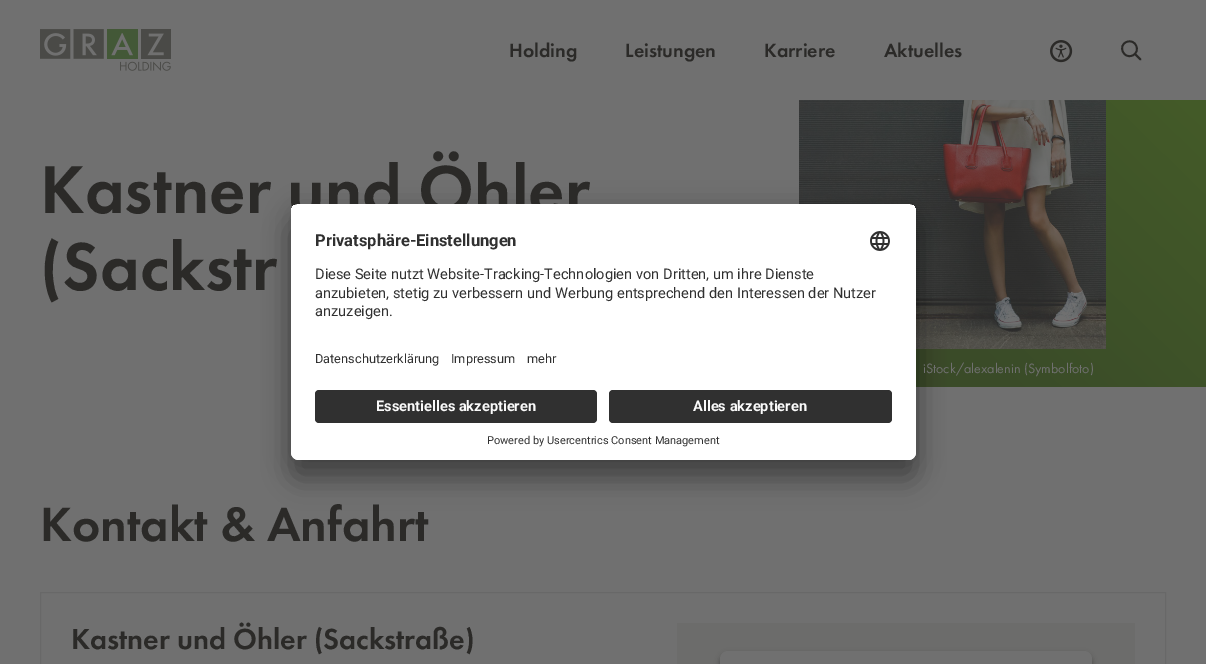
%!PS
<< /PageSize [1206 664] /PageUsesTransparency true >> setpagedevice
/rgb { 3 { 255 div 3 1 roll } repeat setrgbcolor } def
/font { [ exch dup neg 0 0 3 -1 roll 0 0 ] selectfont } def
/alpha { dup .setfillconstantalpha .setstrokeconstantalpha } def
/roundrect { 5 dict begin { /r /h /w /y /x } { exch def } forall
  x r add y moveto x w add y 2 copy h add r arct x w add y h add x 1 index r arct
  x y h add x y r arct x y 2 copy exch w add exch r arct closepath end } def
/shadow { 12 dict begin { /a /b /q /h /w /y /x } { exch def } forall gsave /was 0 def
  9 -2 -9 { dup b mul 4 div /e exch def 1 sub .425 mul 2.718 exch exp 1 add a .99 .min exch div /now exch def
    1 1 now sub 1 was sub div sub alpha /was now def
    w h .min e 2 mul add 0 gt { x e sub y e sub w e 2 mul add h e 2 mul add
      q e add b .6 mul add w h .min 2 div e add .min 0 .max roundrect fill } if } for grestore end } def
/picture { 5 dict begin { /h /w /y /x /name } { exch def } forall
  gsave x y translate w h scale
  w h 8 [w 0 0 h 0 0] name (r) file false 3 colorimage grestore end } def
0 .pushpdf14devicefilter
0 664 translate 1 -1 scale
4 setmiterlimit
112 112 112 rgb
0 0 1206 664 rectfill
(img/1.rgb) 40 29 131 42 picture
(img/2.rgb) 1050 40 23 23 picture
43 42 40 rgb
1.8 setlinewidth
1 setlinecap
1 setlinejoin
1132.5 55.5 moveto 1141.5 51.5 1135.5 38 1126.5 42 curveto 1117.5 45.5 1123.5 59.5 1132.5 55.5 curveto closepath 1135 54 moveto 1140.5 59.5 lineto stroke
gsave 916 100 moveto 1206 100 lineto 1206 387 lineto 916 387 lineto closepath clip newpath
<< /ShadingType 2 /ColorSpace /DeviceRGB /Coords [1206 72 899 387] /Extend [true true] /Function << /FunctionType 3 /Domain [0 1] /Functions [<< /FunctionType 2 /Domain [0 1] /C0 [0.267 0.361 0.161] /C1 [0.267 0.361 0.161] /N 1 >> << /FunctionType 2 /Domain [0 1] /C0 [0.267 0.361 0.161] /C1 [0.227 0.294 0.157] /N 1 >> << /FunctionType 2 /Domain [0 1] /C0 [0.227 0.294 0.157] /C1 [0.227 0.294 0.157] /N 1 >>] /Bounds [0.01 0.83] /Encode [0 1 0 1 0 1] >> >> shfill grestore
(img/3.rgb) 799 100 307 249 picture
104 104 104 rgb
1 setlinewidth
0 setlinecap
0 setlinejoin
40.5 592.5 1125 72 rectstroke
108 108 107 rgb
677 623 458 41 rectfill
36 36 36 rgb
720 654 372 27 8 3 0.5 shadow
112 112 112 rgb
720 651 372 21 8 roundrect fill
0 0 0 rgb
291 224 625 256 8 14 0.3 shadow
291 209 625 256 8 13 0.22 shadow
/FuturaPT-Medium 20 font
43 42 40 rgb
[
  [(Holding) 509 57]
  [(Leistungen) 625 57]
  [(Karriere) 764 57]
  [(Aktuelles) 884 57]
] { aload pop moveto show } forall
/FuturaPT-Medium 70 font
40 213 moveto (Kastner und Öhler) show
40 290 moveto (\(Sackstr) show
/FuturaPT-Regular 14 font
112 112 112 rgb
923 373 moveto (iStock/alexalenin \(Symbolfoto\)) show
/FuturaPT-Medium 50 font
43 42 40 rgb
40 541 moveto (Kontakt & Anfahrt) show
/FuturaPT-Medium 30 font
71 649 moveto (Kastner und Öhler \(Sackstraße\)) show
255 255 255 rgb
291 204 625 256 8 roundrect fill
gsave
291 204 625 256 8 roundrect clip newpath
299 204 moveto 908 204 lineto 912.5 204 916 207.5 916 212 curveto 916 382 lineto 291 382 lineto 291 212 lineto 291 207.5 294.5 204 299 204 curveto closepath clip newpath
291 205 625 177 rectfill
grestore
/Roboto-Bold 16.5 font
48 48 48 rgb
315 246 moveto (Privatsphäre-Einstellungen) show
(img/4.rgb) 870 231 20 20 picture
/Roboto-Regular 14.6 font
[
  [(Diese Seite nutzt Website-Tracking-Technologien von Dritten, um ihre Dienste) 315 279]
  [(anzubieten, stetig zu verbessern und Werbung entsprechend den Interessen der Nutzer) 315 298]
  [(anzuzeigen.) 315 316]
] { aload pop moveto show } forall
/Roboto-Regular 12.75 font
[
  [(Datenschutzerklärung) 315 363]
  [(Impressum) 451 363]
  [(mehr) 527 363]
] { aload pop moveto show } forall
255 255 255 rgb
291 382 moveto 916 382 lineto 916 452 lineto 916 456.5 912.5 460 908 460 curveto 299 460 lineto 294.5 460 291 456.5 291 452 curveto closepath fill
48 48 48 rgb
315 390 282 33 4 roundrect fill
/Roboto-Bold 14.6 font
250 250 250 rgb
376 411 moveto (Essentielles akzeptieren) show
48 48 48 rgb
609 390 283 33 4 roundrect fill
250 250 250 rgb
693 411 moveto (Alles akzeptieren) show
/Roboto-Regular 11 font
48 48 48 rgb
487 444 moveto (Powered by Usercentrics Consent Management) show
.poppdf14devicefilter showpage
